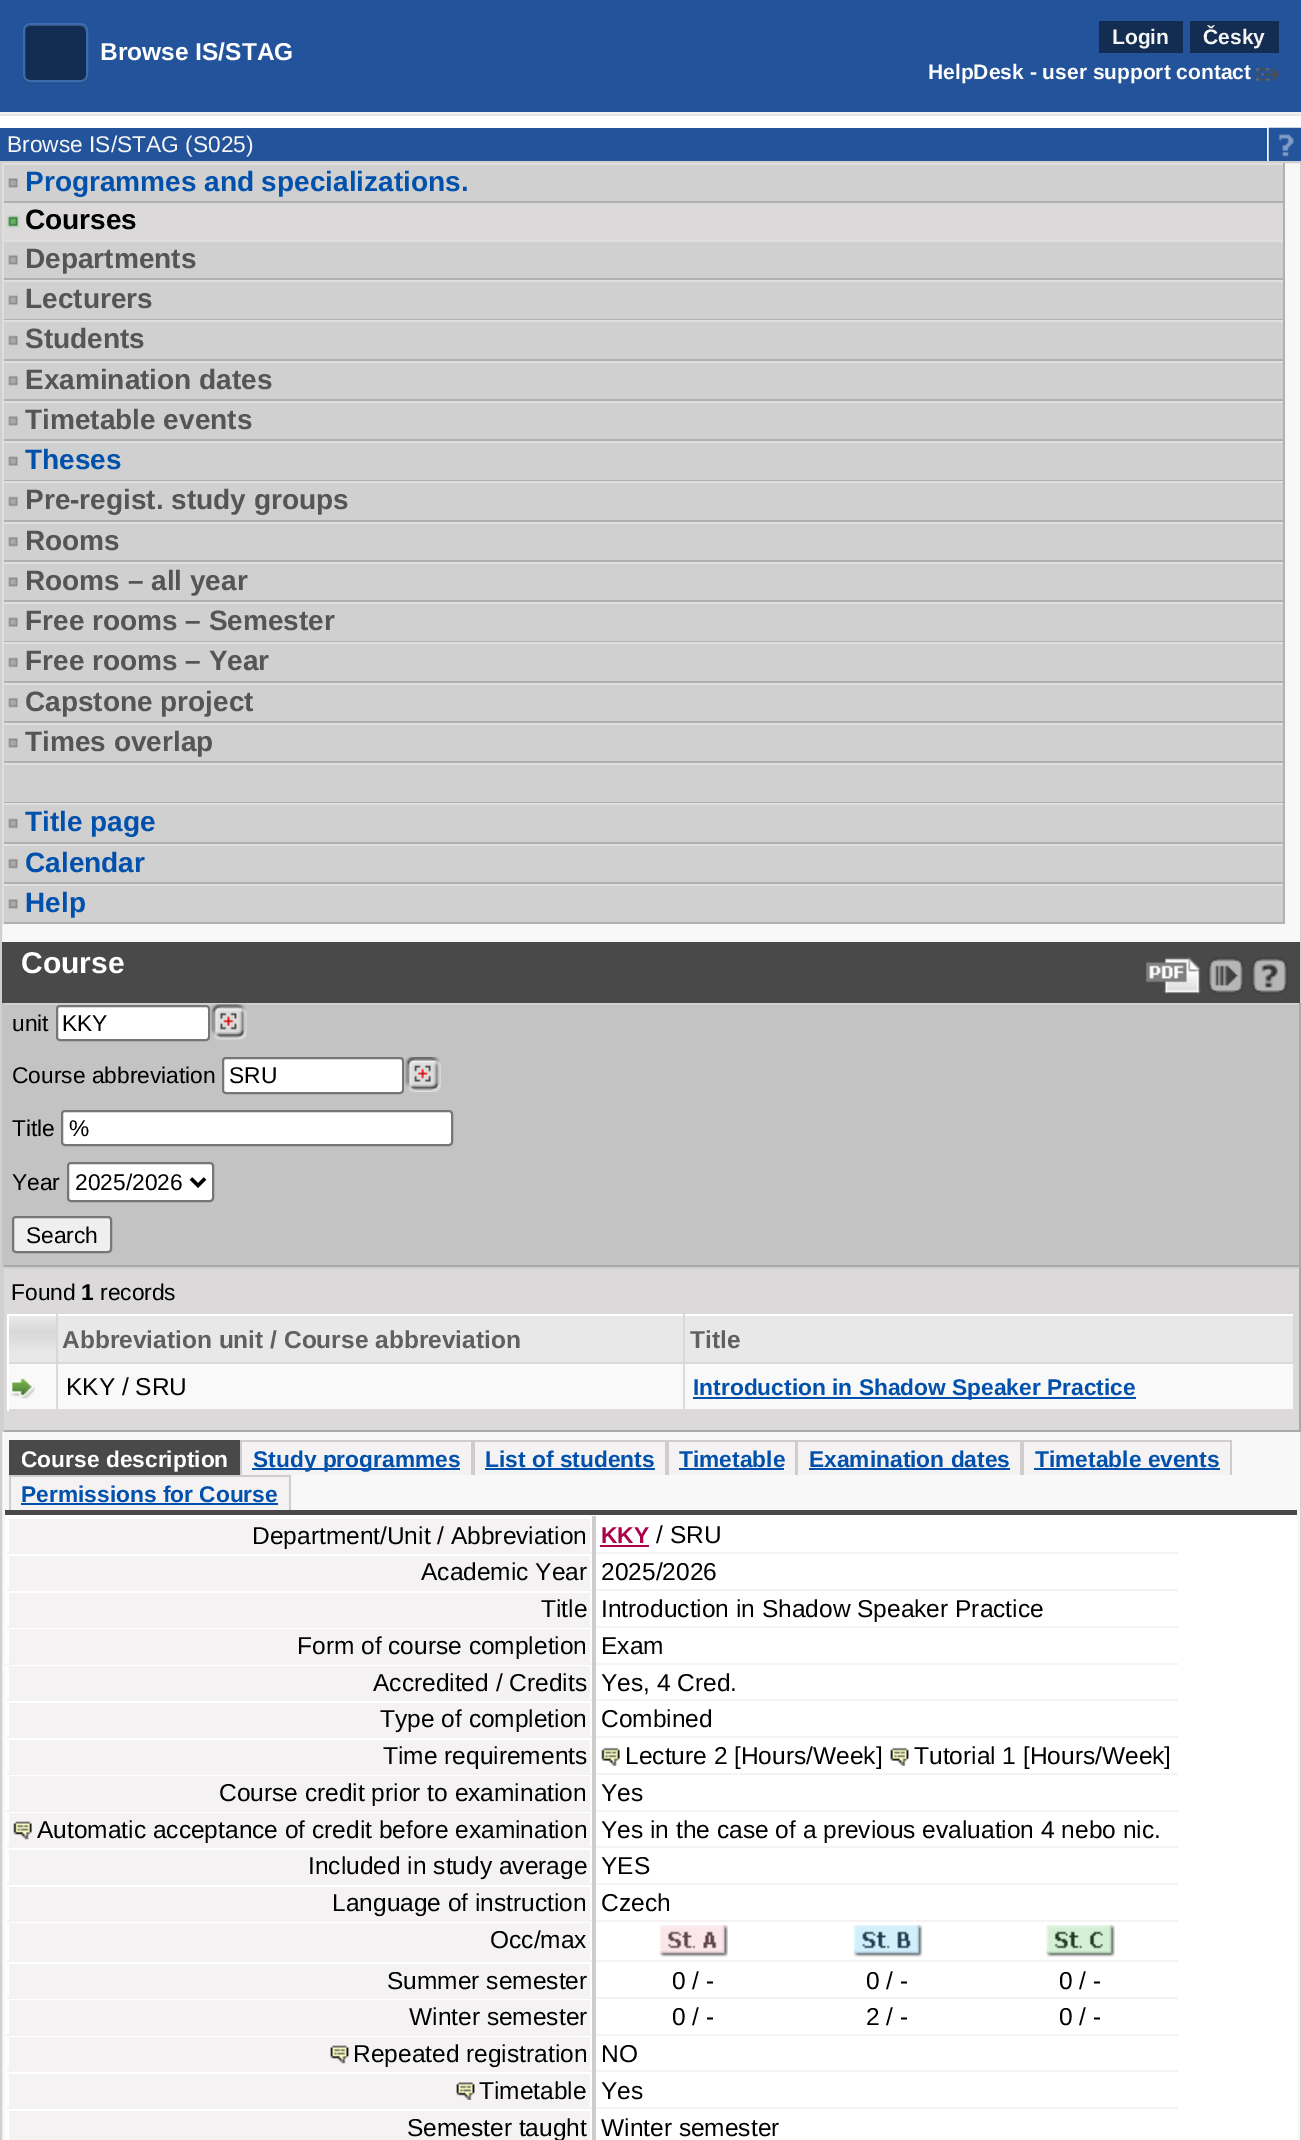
%!PS
<< /PageSize [1301 2140] /PageUsesTransparency true >> setpagedevice
/rgb { 3 { 255 div 3 1 roll } repeat setrgbcolor } def
/font { [ exch dup neg 0 0 3 -1 roll 0 0 ] selectfont } def
/alpha { dup .setfillconstantalpha .setstrokeconstantalpha } def
/roundrect { 5 dict begin { /r /h /w /y /x } { exch def } forall
  x r add y moveto x w add y 2 copy h add r arct x w add y h add x 1 index r arct
  x y h add x y r arct x y 2 copy exch w add exch r arct closepath end } def
/shadow { 12 dict begin { /a /b /q /h /w /y /x } { exch def } forall gsave /was 0 def
  9 -2 -9 { dup b mul 4 div /e exch def 1 sub .425 mul 2.718 exch exp 1 add a .99 .min exch div /now exch def
    1 1 now sub 1 was sub div sub alpha /was now def
    w h .min e 2 mul add 0 gt { x e sub y e sub w e 2 mul add h e 2 mul add
      q e add b .6 mul add w h .min 2 div e add .min 0 .max roundrect fill } if } for grestore end } def
/picture { 5 dict begin { /h /w /y /x /name } { exch def } forall
  gsave x y translate w h scale
  w h 8 [w 0 0 h 0 0] name (r) file false 3 colorimage grestore end } def
0 .pushpdf14devicefilter
0 2140 translate 1 -1 scale
4 setmiterlimit
255 255 255 rgb
0 0 1301 2140 rectfill
35 84 155 rgb
0 0 1301 112 rectfill
0 0 0 rgb
23 25 65 59 7 1 0.07 shadow
19 45 82 rgb
23 23 65 59 7 roundrect fill
54 77 108 rgb
30 26 moveto 80 26 lineto 83 26 86 29 86 32 curveto 86 30 lineto 86 27 84 25 81 25 curveto 30 25 lineto 28 25 26 27 25 29 curveto 26 27 28 26 30 26 curveto closepath fill
60 107 174 rgb
2 setlinewidth
24 24 63 57 6 roundrect stroke
19 45 82 rgb
1099 21 84 32 rectfill
1190 21 89 32 rectfill
(img/1.rgb) 1256 68 24 13 picture
[
  [0 112 1301 2 240 240 245]
  [0 114 1301 2 230 229 229]
  [0 128 1267 33 35 84 155]
  [1267 128 2 33 245 245 245]
] { aload pop rgb rectfill } forall
(img/2.rgb) 1268 127 33 34 picture
248 248 248 rgb
1 162 moveto 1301 162 lineto 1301 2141 lineto 1 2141 lineto closepath gsave fill grestore
208 208 208 rgb
stroke
4 165 1279 36 rectfill
(img/3.rgb) 8 178 10 10 picture
[
  [2 163 1283 2 223 223 223]
  [1283 163 2 77 176 176 176]
  [2 201 1283 2 176 176 176]
  [2 163 2 77 223 223 223]
  [4 203 1279 37 219 217 217]
] { aload pop rgb rectfill } forall
(img/4.rgb) 6 215 14 13 picture
208 208 208 rgb
4 242 1279 36 rectfill
(img/3.rgb) 8 255 10 10 picture
[
  [2 240 1283 2 223 223 223]
  [1283 240 2 40 176 176 176]
  [2 278 1283 2 176 176 176]
  [2 240 2 40 223 223 223]
  [4 282 1279 37 208 208 208]
] { aload pop rgb rectfill } forall
(img/5.rgb) 8 295 10 10 picture
[
  [2 280 1283 2 223 223 223]
  [1283 280 2 40 176 176 176]
  [2 319 1283 1 176 176 176]
  [2 280 2 40 223 223 223]
  [4 322 1279 37 208 208 208]
] { aload pop rgb rectfill } forall
(img/6.rgb) 8 335 10 11 picture
[
  [2 320 1283 2 223 223 223]
  [1283 320 2 41 176 176 176]
  [2 359 1283 2 176 176 176]
  [2 320 2 41 223 223 223]
  [4 363 1279 36 208 208 208]
] { aload pop rgb rectfill } forall
(img/7.rgb) 8 375 10 11 picture
[
  [2 361 1283 2 223 223 223]
  [1283 361 2 40 176 176 176]
  [2 399 1283 2 176 176 176]
  [2 361 2 40 223 223 223]
  [4 403 1279 36 208 208 208]
] { aload pop rgb rectfill } forall
(img/3.rgb) 8 416 10 10 picture
[
  [2 401 1283 2 223 223 223]
  [1283 401 2 40 176 176 176]
  [2 439 1283 2 176 176 176]
  [2 401 2 40 223 223 223]
  [4 443 1279 37 208 208 208]
] { aload pop rgb rectfill } forall
(img/5.rgb) 8 456 10 10 picture
[
  [2 441 1283 2 223 223 223]
  [1283 441 2 40 176 176 176]
  [2 480 1283 1 176 176 176]
  [2 441 2 40 223 223 223]
  [4 483 1279 37 208 208 208]
] { aload pop rgb rectfill } forall
(img/6.rgb) 8 496 10 11 picture
[
  [2 481 1283 2 223 223 223]
  [1283 481 2 41 176 176 176]
  [2 520 1283 2 176 176 176]
  [2 481 2 41 223 223 223]
  [4 524 1279 36 208 208 208]
] { aload pop rgb rectfill } forall
(img/7.rgb) 8 536 10 11 picture
[
  [2 522 1283 2 223 223 223]
  [1283 522 2 40 176 176 176]
  [2 560 1283 2 176 176 176]
  [2 522 2 40 223 223 223]
  [4 564 1279 36 208 208 208]
] { aload pop rgb rectfill } forall
(img/3.rgb) 8 577 10 10 picture
[
  [2 562 1283 2 223 223 223]
  [1283 562 2 40 176 176 176]
  [2 600 1283 2 176 176 176]
  [2 562 2 40 223 223 223]
  [4 604 1279 37 208 208 208]
] { aload pop rgb rectfill } forall
(img/5.rgb) 8 617 10 10 picture
[
  [2 602 1283 2 223 223 223]
  [1283 602 2 40 176 176 176]
  [2 641 1283 1 176 176 176]
  [2 602 2 40 223 223 223]
  [4 644 1279 37 208 208 208]
] { aload pop rgb rectfill } forall
(img/6.rgb) 8 657 10 11 picture
[
  [2 642 1283 2 223 223 223]
  [1283 642 2 41 176 176 176]
  [2 681 1283 2 176 176 176]
  [2 642 2 41 223 223 223]
  [4 685 1279 36 208 208 208]
] { aload pop rgb rectfill } forall
(img/7.rgb) 8 697 10 11 picture
[
  [2 683 1283 2 223 223 223]
  [1283 683 2 40 176 176 176]
  [2 721 1283 2 176 176 176]
  [2 683 2 40 223 223 223]
  [4 725 1279 36 208 208 208]
] { aload pop rgb rectfill } forall
(img/3.rgb) 8 738 10 10 picture
[
  [2 723 1283 2 223 223 223]
  [1283 723 2 40 176 176 176]
  [2 761 1283 2 176 176 176]
  [2 723 2 40 223 223 223]
  [4 765 1279 37 208 208 208]
  [2 763 1283 2 223 223 223]
  [1283 763 2 40 176 176 176]
  [2 802 1283 1 176 176 176]
  [2 763 2 40 223 223 223]
  [4 805 1279 37 208 208 208]
] { aload pop rgb rectfill } forall
(img/6.rgb) 8 818 10 11 picture
[
  [2 803 1283 2 223 223 223]
  [1283 803 2 41 176 176 176]
  [2 842 1283 2 176 176 176]
  [2 803 2 41 223 223 223]
  [4 846 1279 36 208 208 208]
] { aload pop rgb rectfill } forall
(img/7.rgb) 8 858 10 11 picture
[
  [2 844 1283 2 223 223 223]
  [1283 844 2 40 176 176 176]
  [2 882 1283 2 176 176 176]
  [2 844 2 40 223 223 223]
  [4 886 1279 36 208 208 208]
] { aload pop rgb rectfill } forall
(img/3.rgb) 8 899 10 10 picture
[
  [2 884 1283 2 223 223 223]
  [1283 884 2 40 176 176 176]
  [2 922 1283 2 176 176 176]
  [2 884 2 40 223 223 223]
  [2 942 1298 61 73 73 73]
] { aload pop rgb rectfill } forall
(img/8.rgb) 1146 957 55 37 picture
(img/9.rgb) 1207 957 37 37 picture
(img/10.rgb) 1251 957 37 37 picture
[
  [4 1005 1295 260 195 195 195]
  [2 1003 1298 2 208 208 208]
  [1299 1003 2 264 170 170 170]
  [2 1265 1298 2 170 170 170]
  [2 1003 2 264 195 195 195]
] { aload pop rgb rectfill } forall
255 255 255 rgb
57 1006 152 34 3 roundrect gsave fill grestore
118 118 118 rgb
stroke
(img/11.rgb) 210 1004 37 36 picture
255 255 255 rgb
223 1058 180 35 3 roundrect gsave fill grestore
118 118 118 rgb
stroke
(img/12.rgb) 404 1057 37 35 picture
255 255 255 rgb
62 1111 390 34 3 roundrect gsave fill grestore
118 118 118 rgb
stroke
255 255 255 rgb
68 1163 145 38 3 roundrect gsave fill grestore
118 118 118 rgb
stroke
0 0 0 rgb
3.5 setlinewidth
191 1178.5 moveto 198 1185.5 lineto 205 1178.5 lineto stroke
239 239 239 rgb
13 1217 98 35 3 roundrect gsave fill grestore
118 118 118 rgb
2 setlinewidth
stroke
[
  [4 1269 1295 161 219 217 217]
  [2 1267 1298 2 208 208 208]
  [1299 1267 2 165 170 170 170]
  [2 1430 1298 2 170 170 170]
  [2 1267 2 165 208 208 208]
  [7 1314 1286 48 255 255 255]
  [9 1316 47 2 232 232 232]
] { aload pop rgb rectfill } forall
gsave 9 1318 moveto 56 1318 lineto 56 1362 lineto 9 1362 lineto closepath clip newpath
<< /ShadingType 2 /ColorSpace /DeviceRGB /Coords [32 1318 32 1363] /Extend [true true] /Function << /FunctionType 3 /Domain [0 1] /Functions [<< /FunctionType 2 /Domain [0 1] /C0 [0.91 0.91 0.91] /C1 [0.847 0.847 0.847] /N 1 >> << /FunctionType 2 /Domain [0 1] /C0 [0.847 0.847 0.847] /C1 [0.91 0.91 0.91] /N 1 >> << /FunctionType 2 /Domain [0 1] /C0 [0.91 0.91 0.91] /C1 [0.91 0.91 0.91] /N 1 >>] /Bounds [0.31 0.77] /Encode [0 1 0 1 0 1] >> >> shfill grestore
[
  [9 1364 1284 45 249 249 249]
  [56 1362 2 49 219 217 217]
  [56 1314 2 49 216 216 216]
  [58 1316 625 46 232 232 232]
  [683 1362 2 49 219 217 217]
  [683 1314 2 49 216 216 216]
  [685 1316 608 46 232 232 232]
  [1293 1314 2 49 216 216 216]
  [7 1362 2 49 255 255 255]
] { aload pop rgb rectfill } forall
(img/13.rgb) 10 1377 25 22 picture
[
  [693 1397 443 2 1 81 172]
  [9 1440 231 35 73 73 73]
  [242 1442 229 33 244 242 242]
  [240 1440 992 2 206 204 204]
  [471 1440 4 35 206 204 204]
  [240 1440 2 35 206 204 204]
  [252 1468 208 2 1 81 172]
  [475 1442 190 33 244 242 242]
  [665 1440 4 35 206 204 204]
  [485 1468 170 2 1 81 172]
  [669 1442 126 33 244 242 242]
  [795 1440 3 35 206 204 204]
  [679 1468 105 2 1 81 172]
  [798 1442 222 33 244 242 242]
  [1020 1440 4 35 206 204 204]
  [809 1468 201 2 1 81 172]
  [1024 1442 206 33 244 242 242]
  [1230 1440 2 35 206 204 204]
  [1034 1468 186 2 1 81 172]
  [11 1477 278 33 244 242 242]
  [9 1475 282 2 206 204 204]
  [289 1475 2 35 206 204 204]
  [9 1475 2 35 206 204 204]
  [21 1503 257 2 1 81 172]
  [5 1515 1292 625 255 255 255]
  [5 1510 1292 5 73 73 73]
  [9 1519 581 33 244 242 242]
  [5 1552 1173 2 244 242 242]
  [5 1552 2 2 255 255 255]
  [600 1545 49 2 172 1 73]
  [9 1556 581 33 244 242 242]
  [5 1589 1173 2 244 242 242]
  [5 1589 2 2 255 255 255]
  [9 1593 581 33 244 242 242]
  [5 1626 1173 2 244 242 242]
  [5 1626 2 2 255 255 255]
  [9 1629 581 34 244 242 242]
  [5 1663 1173 2 244 242 242]
  [5 1663 2 1 255 255 255]
  [9 1666 581 33 244 242 242]
  [5 1699 1173 2 244 242 242]
  [5 1699 2 2 255 255 255]
  [9 1703 581 33 244 242 242]
  [5 1736 1173 2 244 242 242]
  [5 1736 2 2 255 255 255]
  [9 1740 581 33 244 242 242]
  [5 1773 1173 2 244 242 242]
  [5 1773 2 2 255 255 255]
] { aload pop rgb rectfill } forall
(img/14.rgb) 601 1747 19 19 picture
(img/15.rgb) 890 1747 19 19 picture
[
  [9 1776 581 34 244 242 242]
  [5 1810 1173 2 244 242 242]
  [5 1810 2 1 255 255 255]
  [9 1813 581 33 244 242 242]
  [5 1846 1173 2 244 242 242]
  [5 1846 2 2 255 255 255]
] { aload pop rgb rectfill } forall
(img/16.rgb) 13 1821 19 19 picture
[
  [9 1850 581 33 244 242 242]
  [5 1883 1173 2 244 242 242]
  [5 1883 2 2 255 255 255]
  [9 1887 581 33 244 242 242]
  [5 1920 1173 2 244 242 242]
  [5 1920 2 2 255 255 255]
  [5 1960 1173 2 244 242 242]
] { aload pop rgb rectfill } forall
(img/17.rgb) 1046 1925 69 32 picture
9 1923 581 37 rectfill
255 255 255 rgb
5 1960 2 2 rectfill
(img/18.rgb) 659 1925 69 32 picture
(img/19.rgb) 854 1925 69 32 picture
[
  [9 1964 581 33 244 242 242]
  [5 1997 1173 2 244 242 242]
  [5 1997 2 2 255 255 255]
  [9 2000 581 34 244 242 242]
  [5 2034 1173 2 244 242 242]
  [5 2034 2 1 255 255 255]
  [9 2037 581 33 244 242 242]
  [5 2070 1173 2 244 242 242]
  [5 2070 2 2 255 255 255]
] { aload pop rgb rectfill } forall
(img/20.rgb) 330 2045 19 19 picture
[
  [9 2074 581 33 244 242 242]
  [5 2107 1173 2 244 242 242]
  [5 2107 2 2 255 255 255]
] { aload pop rgb rectfill } forall
(img/21.rgb) 456 2082 19 18 picture
244 242 242 rgb
9 2111 581 29 rectfill
206 204 204 rgb
592 1516 4 624 rectfill
/LiberationSans-Bold 24.5 font
255 255 255 rgb
100 60 moveto (Browse IS/STAG) show
/LiberationSans-Bold 21 font
245 245 245 rgb
1112 44 moveto (Login) show
1203 44 moveto (Česky) show
255 255 255 rgb
928 79 moveto (HelpDesk - user support contact) show
/LiberationSans-Regular 22.75 font
245 245 245 rgb
7 152 moveto (Browse IS/STAG \(S025\)) show
/LiberationSans-Bold 28 font
1 81 172 rgb
25 191 moveto (Programmes and specializations.) show
0 0 0 rgb
25 229 moveto (Courses) show
85 85 85 rgb
[
  [(Departments) 25 268]
  [(Lecturers) 25 308]
  [(Students) 25 348]
  [(Examination dates) 25 389]
  [(Timetable events) 25 429]
] { aload pop moveto show } forall
1 81 172 rgb
25 469 moveto (Theses) show
85 85 85 rgb
[
  [(Pre-regist. study groups) 25 509]
  [(Rooms) 25 550]
  [(Rooms – all year) 25 590]
  [(Free rooms – Semester) 25 630]
  [(Free rooms – Year) 25 670]
  [(Capstone project) 25 711]
  [(Times overlap) 25 751]
] { aload pop moveto show } forall
1 81 172 rgb
[
  [(Title page) 25 831]
  [(Calendar) 25 872]
  [(Help) 25 912]
] { aload pop moveto show } forall
/LiberationSans-Bold 30 font
255 255 255 rgb
21 973 moveto (Course) show
/LiberationSans-Regular 22.75 font
0 0 0 rgb
[
  [(unit) 12 1031]
  [(KKY) 62 1031]
  [(Course abbreviation) 12 1083]
  [(SRU) 229 1083]
  [(Title) 12 1136]
  [(%) 69 1136]
  [(Year) 12 1190]
  [(2025/2026) 75 1190]
  [(Search) 26 1243]
  [(Found) 11 1300]
] { aload pop moveto show } forall
/LiberationSans-Bold 22.75 font
81 1300 moveto (1) show
/LiberationSans-Regular 22.75 font
100 1300 moveto (records) show
/LiberationSans-Bold 24.5 font
96 96 96 rgb
62 1348 moveto (Abbreviation unit / Course abbreviation) show
690 1348 moveto (Title) show
/LiberationSans-Regular 24.5 font
0 0 0 rgb
66 1395 moveto (KKY / SRU) show
/LiberationSans-Bold 22.75 font
1 81 172 rgb
693 1395 moveto (Introduction in Shadow Speaker Practice) show
255 255 255 rgb
21 1467 moveto (Course description) show
1 81 172 rgb
[
  [(Study programmes) 253 1467]
  [(List of students) 485 1467]
  [(Timetable) 679 1467]
  [(Examination dates) 809 1467]
  [(Timetable events) 1035 1467]
  [(Permissions for Course) 21 1502]
] { aload pop moveto show } forall
/LiberationSans-Regular 24.5 font
0 0 0 rgb
252 1544 moveto (Department/Unit / Abbreviation) show
/LiberationSans-Bold 22.75 font
172 1 73 rgb
601 1543 moveto (KKY) show
/LiberationSans-Regular 24.5 font
0 0 0 rgb
[
  [(/ SRU) 656 1543]
  [(Academic Year) 421 1580]
  [(2025/2026) 601 1580]
  [(Title) 541 1617]
  [(Introduction in Shadow Speaker Practice) 601 1617]
  [(Form of course completion) 297 1654]
  [(Exam) 601 1654]
  [(Accredited / Credits) 373 1691]
  [(Yes, 4 Cred.) 601 1691]
  [(Type of completion) 380 1727]
  [(Combined) 601 1727]
  [(Time requirements) 383 1764]
  [(Lecture 2 [Hours/Week]) 625 1764]
  [(Tutorial 1 [Hours/Week]) 914 1764]
  [(Course credit prior to examination) 219 1801]
  [(Yes) 601 1801]
  [(Automatic acceptance of credit before examination) 37 1838]
  [(Yes in the case of a previous evaluation 4 nebo nic.) 601 1838]
  [(Included in study average) 308 1874]
  [(YES) 601 1874]
  [(Language of instruction) 332 1911]
  [(Czech) 601 1911]
  [(Occ/max) 490 1948]
  [(Summer semester) 387 1989]
  [(0 / -) 672 1989]
  [(0 / -) 866 1989]
  [(0 / -) 1059 1989]
  [(Winter semester) 409 2025]
  [(0 / -) 672 2025]
  [(2 / -) 866 2025]
  [(0 / -) 1059 2025]
  [(Repeated registration) 353 2062]
  [(NO) 601 2062]
  [(Timetable) 479 2099]
  [(Yes) 601 2099]
  [(Semester taught) 407 2136]
  [(Winter semester) 601 2136]
] { aload pop moveto show } forall
.poppdf14devicefilter showpage
